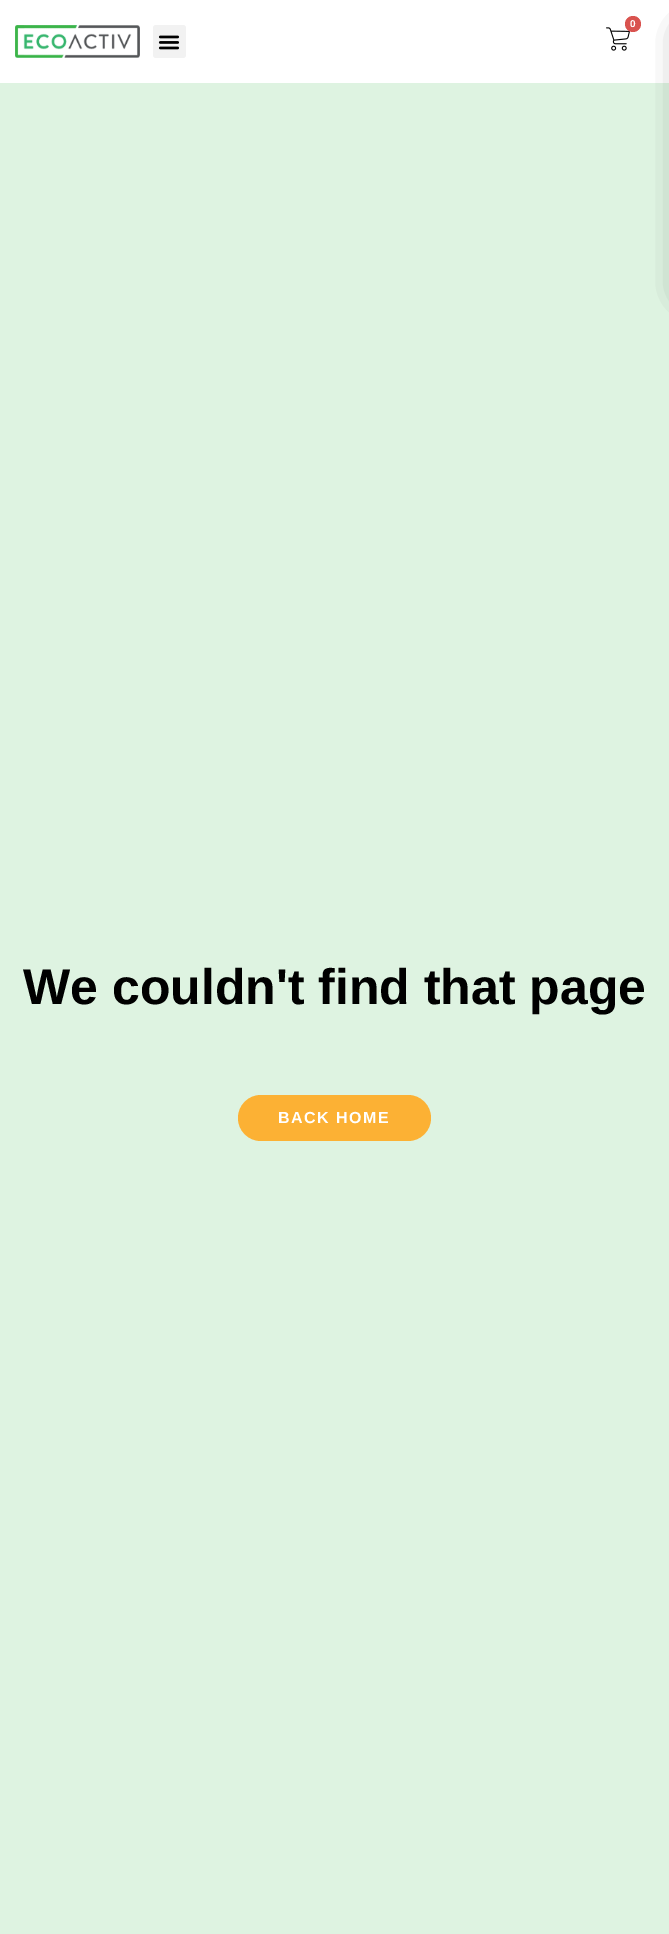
%!PS
<< /PageSize [669 1934] /PageUsesTransparency true >> setpagedevice
/rgb { 3 { 255 div 3 1 roll } repeat setrgbcolor } def
/font { [ exch dup neg 0 0 3 -1 roll 0 0 ] selectfont } def
/alpha { dup .setfillconstantalpha .setstrokeconstantalpha } def
/circle { newpath 0 360 arc closepath } def
/roundrect { 5 dict begin { /r /h /w /y /x } { exch def } forall
  x r add y moveto x w add y 2 copy h add r arct x w add y h add x 1 index r arct
  x y h add x y r arct x y 2 copy exch w add exch r arct closepath end } def
/shadow { 12 dict begin { /a /b /q /h /w /y /x } { exch def } forall gsave /was 0 def
  9 -2 -9 { dup b mul 4 div /e exch def 1 sub .425 mul 2.718 exch exp 1 add a .99 .min exch div /now exch def
    1 1 now sub 1 was sub div sub alpha /was now def
    w h .min e 2 mul add 0 gt { x e sub y e sub w e 2 mul add h e 2 mul add
      q e add b .6 mul add w h .min 2 div e add .min 0 .max roundrect fill } if } for grestore end } def
/picture { 5 dict begin { /h /w /y /x /name } { exch def } forall
  gsave x y translate w h scale
  w h 8 [w 0 0 h 0 0] name (r) file false 3 colorimage grestore end } def
0 .pushpdf14devicefilter
0 1934 translate 1 -1 scale
4 setmiterlimit
255 255 255 rgb
0 0 669 1934 rectfill
(img/1.rgb) 606 27 24 24 picture
217 83 79 rgb
633 24 8 circle fill
(img/2.rgb) 15 25 125 33 picture
242 242 242 rgb
153 25 33 33 3 roundrect fill
(img/3.rgb) 158 35 22 15 picture
222 243 225 rgb
0 83 669 1851 rectfill
0 0 0 rgb
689 35 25 255 0 15 0.85 shadow
252 177 52 rgb
238 1095 193 46 23 roundrect fill
/LiberationSans-Bold 10 font
255 255 255 rgb
630 27 moveto (0) show
/LiberationSans-Bold 50 font
0 0 0 rgb
23 1004 moveto (We couldn't find that page) show
/LiberationSans-Bold 16 font
255 255 255 rgb
278 1123 moveto 1.5 0 (BACK HOME) ashow
.poppdf14devicefilter showpage
